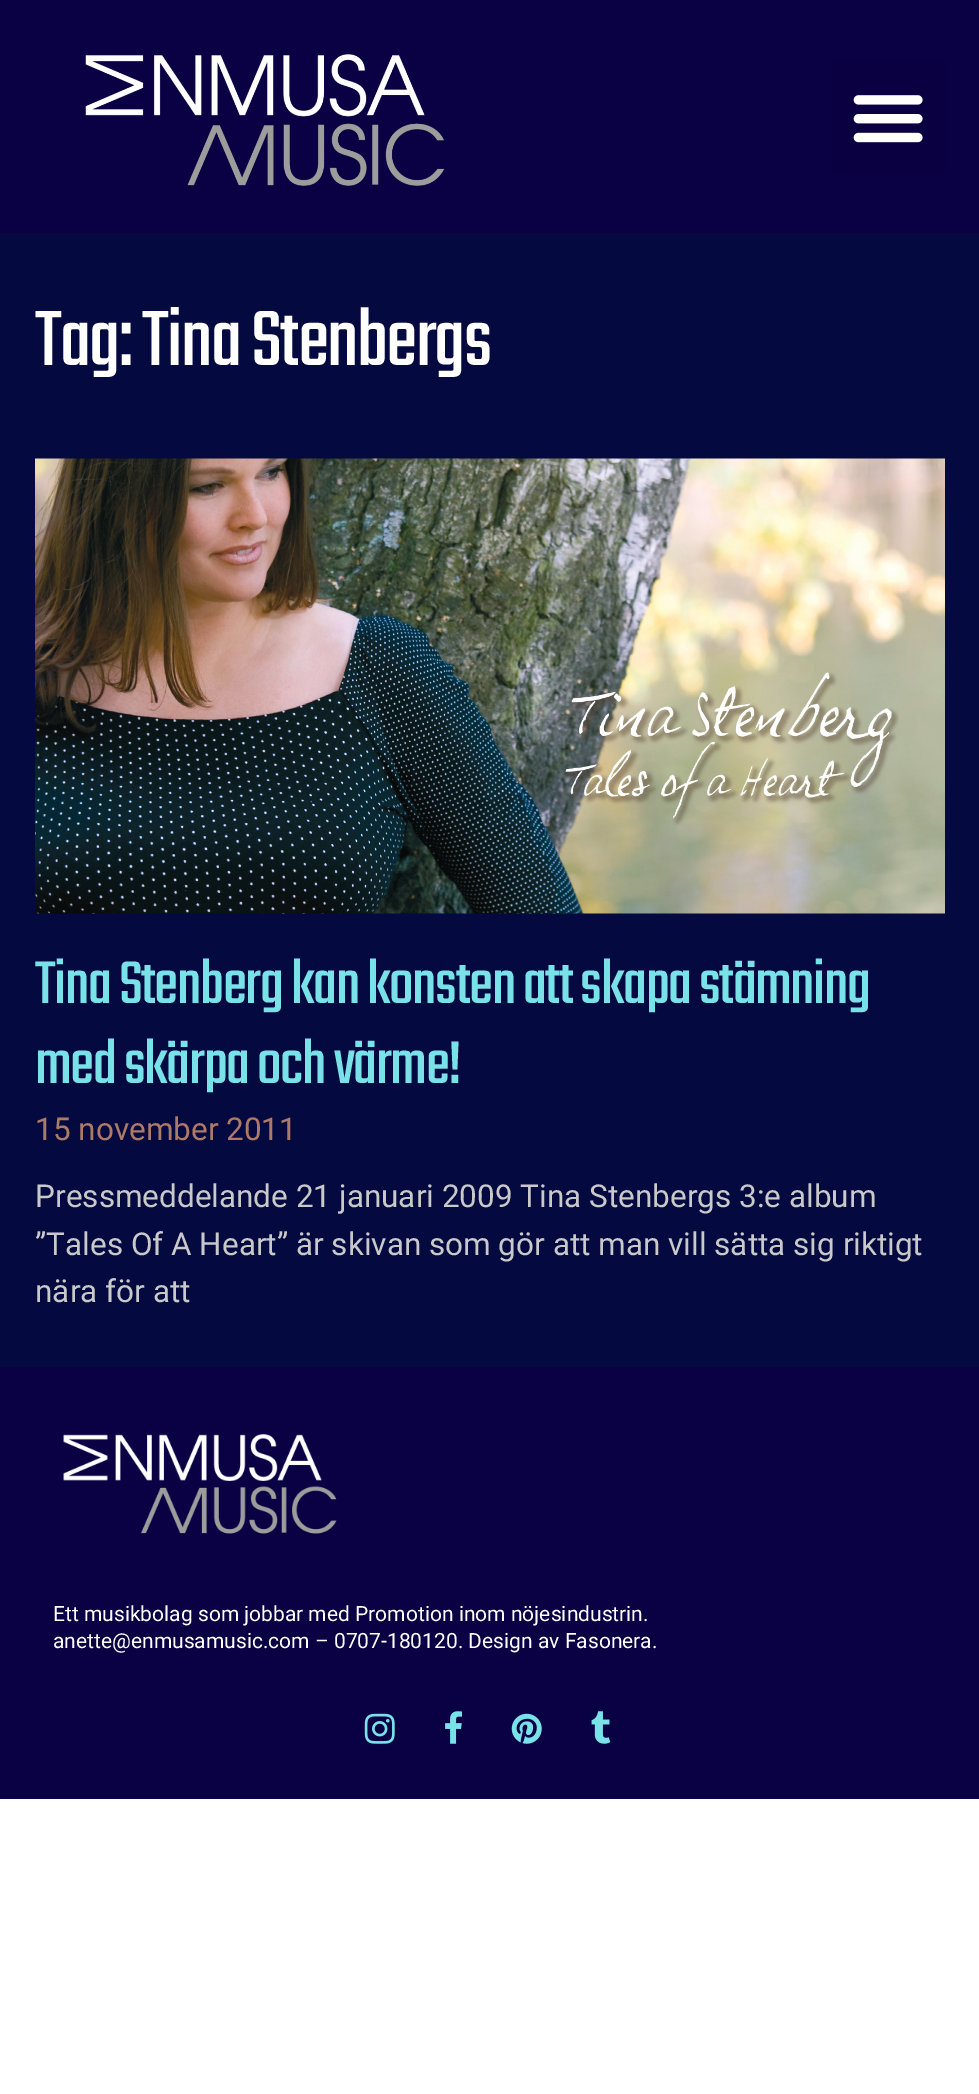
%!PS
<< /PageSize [979 2094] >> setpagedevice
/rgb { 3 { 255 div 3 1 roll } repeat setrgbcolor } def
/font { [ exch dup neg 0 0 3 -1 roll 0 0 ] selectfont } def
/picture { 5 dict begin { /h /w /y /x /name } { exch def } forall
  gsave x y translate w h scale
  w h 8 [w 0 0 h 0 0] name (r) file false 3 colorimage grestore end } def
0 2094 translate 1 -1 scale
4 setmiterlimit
255 255 255 rgb
0 0 979 2094 rectfill
10 0 68 rgb
0 0 979 233 rectfill
(img/1.rgb) 85 54 360 132 picture
10 0 65 rgb
833 60 112 113 rectfill
(img/2.rgb) 853 95 70 48 picture
4 9 63 rgb
0 233 979 1134 rectfill
(img/3.rgb) 35 458 910 456 picture
10 0 68 rgb
0 1367 979 432 rectfill
(img/4.rgb) 63 1434 274 100 picture
(img/5.rgb) 364 1713 31 31 picture
(img/6.rgb) 445 1711 17 33 picture
(img/7.rgb) 511 1713 31 31 picture
(img/8.rgb) 591 1711 20 33 picture
/Teko-Regular 86.5 font
255 255 255 rgb
35 365 moveto -1.75 0 (Tag: Tina Stenbergs) ashow
/Teko-Regular 66.5 font
121 225 232 rgb
35 1003 moveto -1.35 0 (Tina Stenberg kan konsten att skapa stämning) ashow
35 1083 moveto -1.35 0 (med skärpa och värme!) ashow
/Roboto-Regular 31.5 font
173 122 103 rgb
35 1140 moveto (15 november 2011) show
201 201 201 rgb
[
  [(Pressmeddelande 21 januari 2009 Tina Stenbergs 3:e album) 35 1207]
  [(”Tales Of A Heart” är skivan som gör att man vill sätta sig riktigt) 35 1255]
  [(nära för att) 35 1302]
] { aload pop moveto show } forall
/Roboto-Regular 21 font
255 255 255 rgb
53 1621 moveto (Ett musikbolag som jobbar med Promotion inom nöjesindustrin.) show
53 1648 moveto (anette@enmusamusic.com – 0707-180120. Design av Fasonera.) show
showpage
